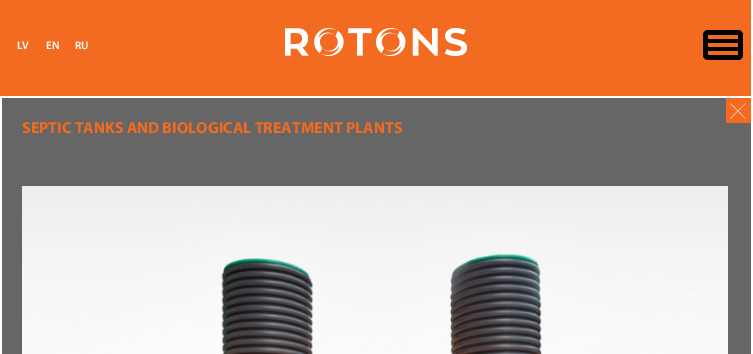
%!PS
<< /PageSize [753 354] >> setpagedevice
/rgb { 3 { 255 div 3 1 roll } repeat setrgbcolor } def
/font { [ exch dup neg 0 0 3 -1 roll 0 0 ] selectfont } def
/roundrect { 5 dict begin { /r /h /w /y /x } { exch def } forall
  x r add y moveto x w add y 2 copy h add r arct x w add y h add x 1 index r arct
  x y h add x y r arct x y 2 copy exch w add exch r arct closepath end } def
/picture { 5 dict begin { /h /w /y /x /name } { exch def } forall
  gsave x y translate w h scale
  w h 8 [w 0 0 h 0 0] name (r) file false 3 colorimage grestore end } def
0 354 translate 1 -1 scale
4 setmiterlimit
243 107 32 rgb
0 0 753 354 rectfill
255 255 255 rgb
0 96 753 2 rectfill
751 0 2 96 rectfill
(img/1.rgb) 285 28 182 28 picture
0 0 0 rgb
703 30 40 30 5 roundrect fill
[
  [708 35 30 4 243 107 32]
  [708 43 30 4 243 107 32]
  [708 51 30 4 243 107 32]
  [0 98 2 256 255 255 255]
  [2 98 749 256 102 102 102]
  [751 98 2 256 255 255 255]
] { aload pop rgb rectfill } forall
(img/2.rgb) 726 98 25 25 picture
(img/3.rgb) 22 186 706 168 picture
/Myriad-SemiBold 11 font
[
  [(LV) 17 49]
  [(EN) 46 49]
  [(RU) 75 49]
] { aload pop moveto show } forall
/Myriad-Bold 16 font
243 107 33 rgb
22 133 moveto (SEPTIC TANKS AND BIOLOGICAL TREATMENT PLANTS) show
showpage
